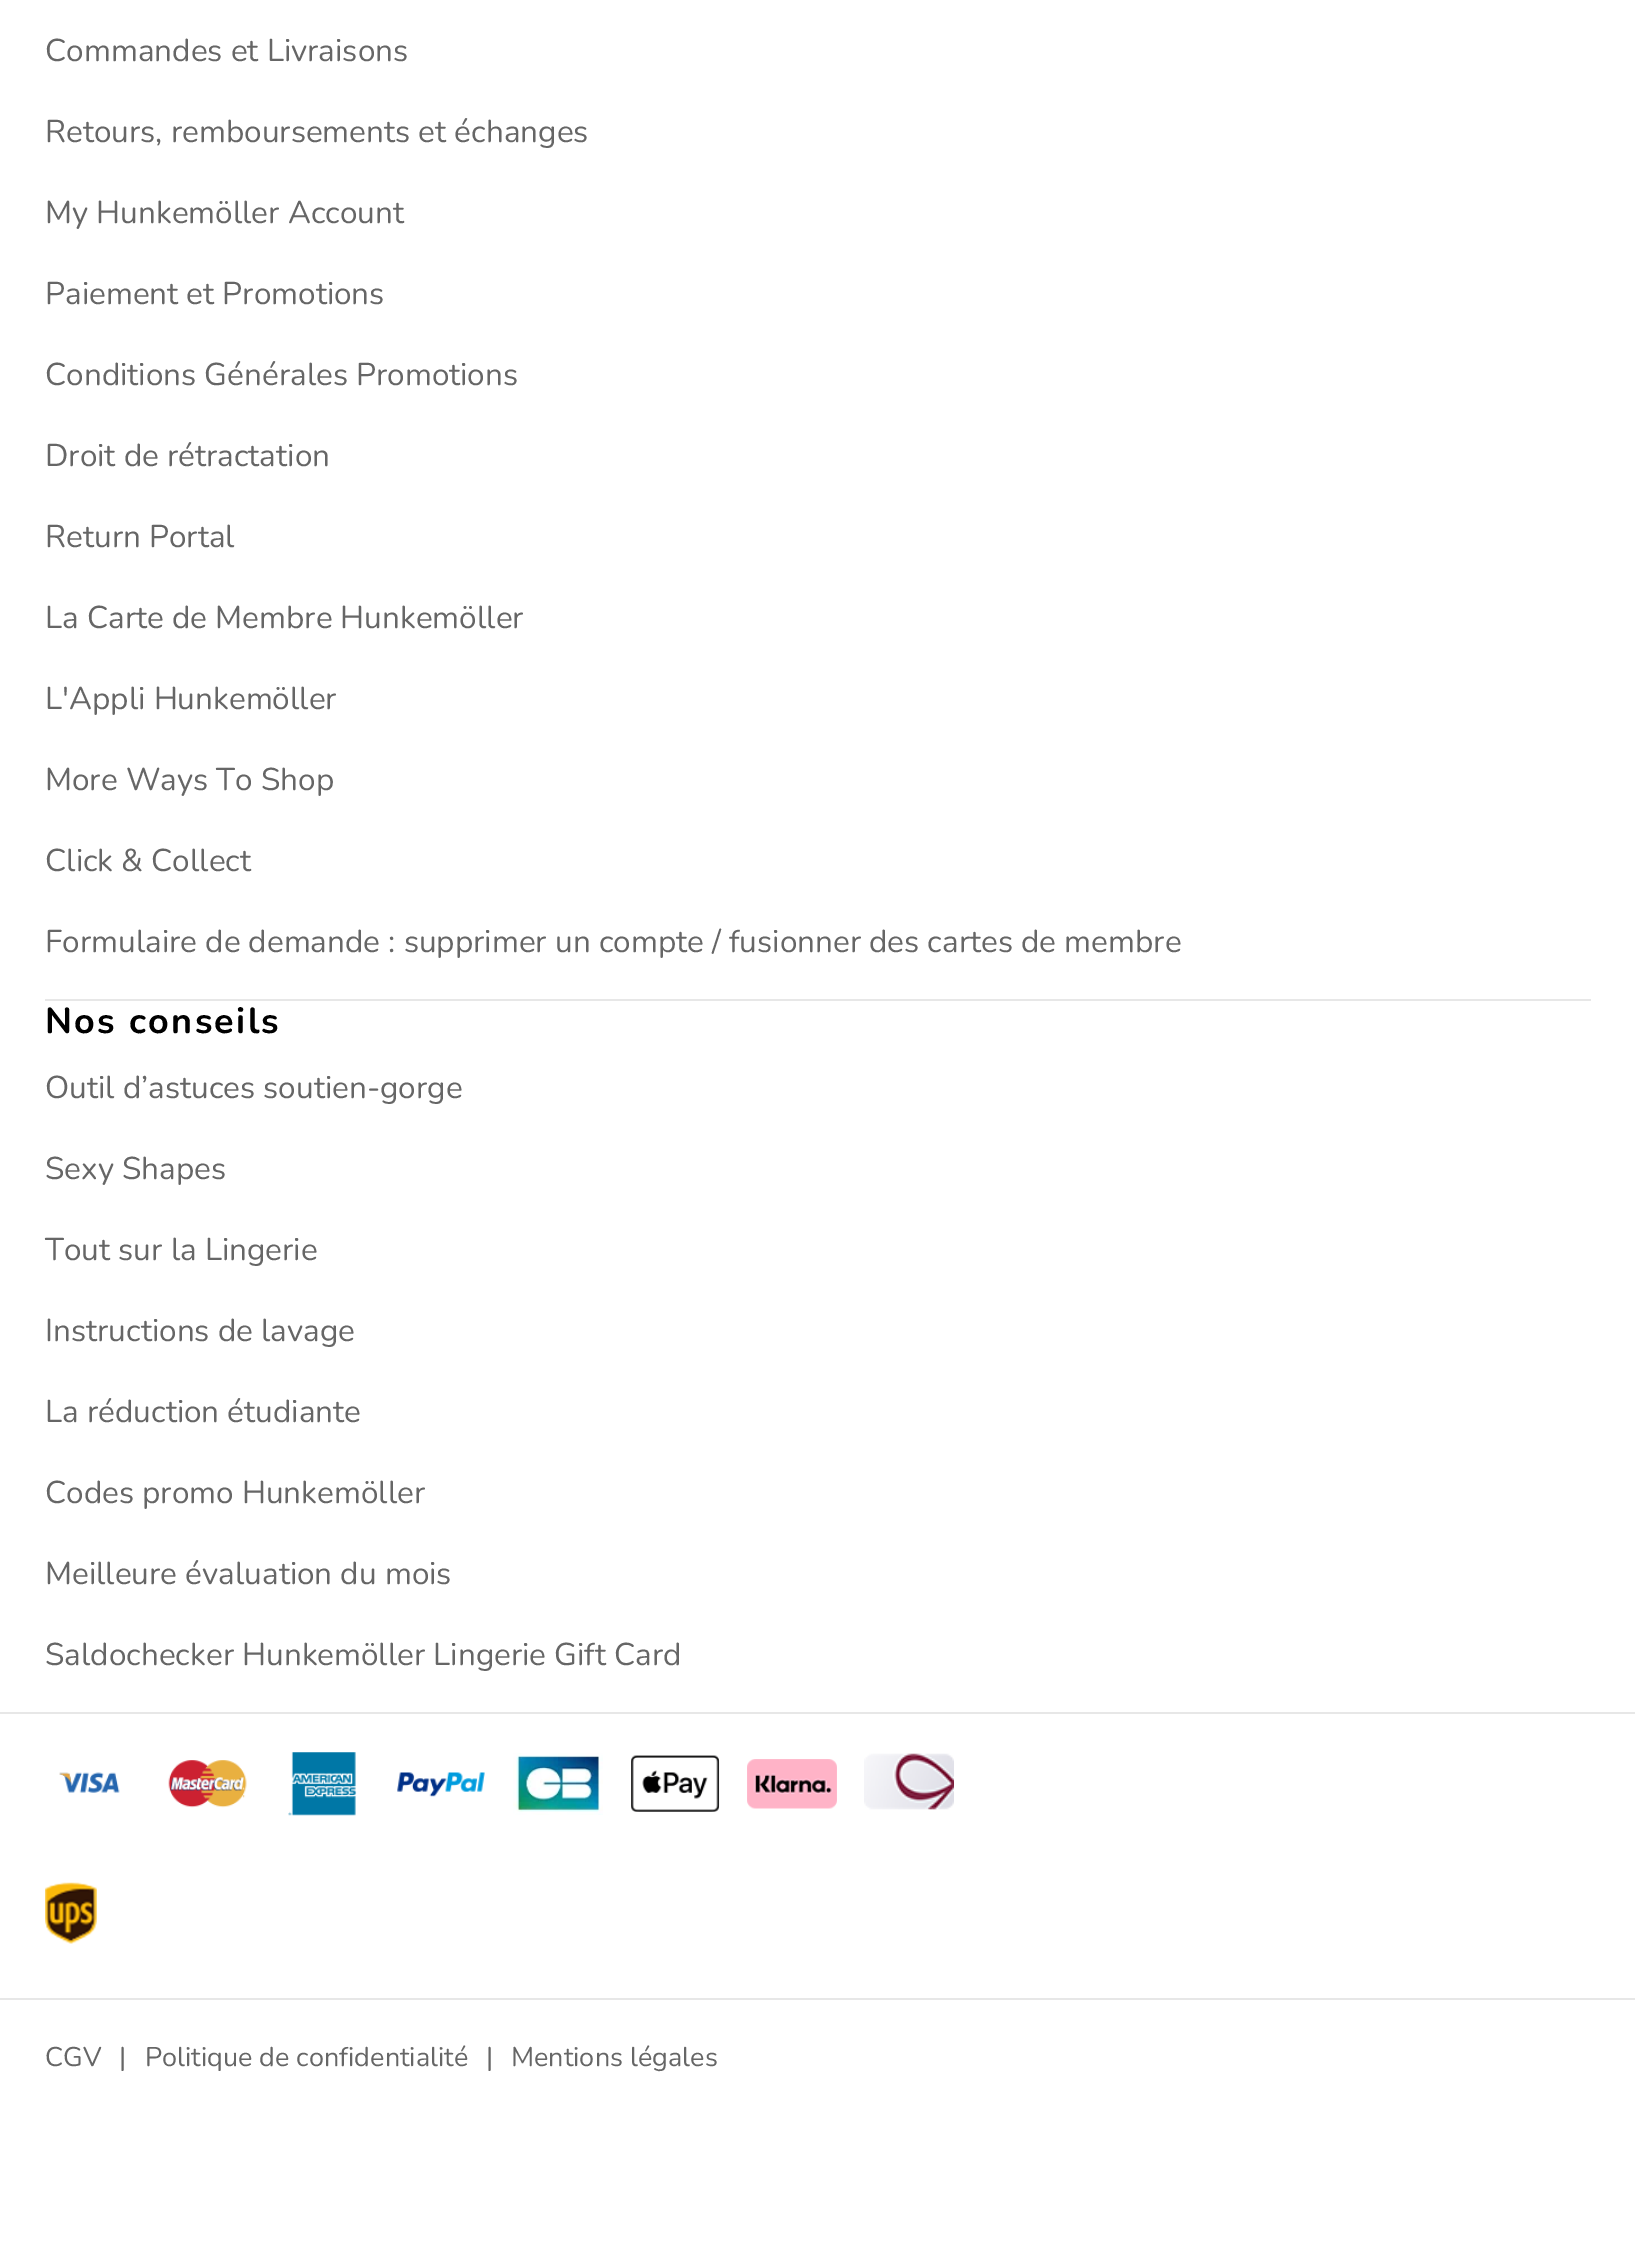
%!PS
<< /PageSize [1635 2250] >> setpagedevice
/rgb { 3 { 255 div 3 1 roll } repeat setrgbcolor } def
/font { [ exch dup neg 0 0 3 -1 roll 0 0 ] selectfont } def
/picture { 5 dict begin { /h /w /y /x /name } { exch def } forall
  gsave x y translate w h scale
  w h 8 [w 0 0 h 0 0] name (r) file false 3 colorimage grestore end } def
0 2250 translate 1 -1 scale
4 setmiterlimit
255 255 255 rgb
0 0 1635 2250 rectfill
231 231 231 rgb
0 1712 1635 2 rectfill
45 999 1546 2 rectfill
(img/1.rgb) 59 1772 61 21 picture
(img/2.rgb) 168 1760 79 48 picture
(img/3.rgb) 288 1752 69 64 picture
(img/4.rgb) 397 1772 88 25 picture
(img/5.rgb) 513 1753 90 62 picture
(img/6.rgb) 631 1755 89 57 picture
(img/7.rgb) 747 1759 90 50 picture
(img/8.rgb) 864 1753 90 57 picture
(img/9.rgb) 45 1882 52 62 picture
0 1998 1635 2 rectfill
/Nunito-Regular 31.5 font
102 102 102 rgb
[
  [(Commandes et Livraisons) 45 61]
  [(Retours, remboursements et échanges) 45 142]
  [(My Hunkemöller Account) 45 223]
  [(Paiement et Promotions) 45 304]
  [(Conditions Générales Promotions) 45 385]
  [(Droit de rétractation) 45 466]
  [(Return Portal) 45 547]
  [(La Carte de Membre Hunkemöller) 45 628]
  [(L'Appli Hunkemöller) 45 709]
  [(More Ways To Shop) 45 790]
  [(Click & Collect) 45 871]
  [(Formulaire de demande : supprimer un compte / fusionner des cartes de membre) 45 952]
] { aload pop moveto show } forall
/Nunito-Bold 36 font
0 0 0 rgb
45 1033 moveto 2.25 0 (Nos conseils) ashow
/Nunito-Regular 31.5 font
102 102 102 rgb
[
  [(Outil d’astuces soutien-gorge) 45 1098]
  [(Sexy Shapes) 45 1179]
  [(Tout sur la Lingerie) 45 1260]
  [(Instructions de lavage) 45 1341]
  [(La réduction étudiante) 45 1422]
  [(Codes promo Hunkemöller) 45 1503]
  [(Meilleure évaluation du mois) 45 1584]
  [(Saldochecker Hunkemöller Lingerie Gift Card) 45 1665]
] { aload pop moveto show } forall
/Nunito-Regular 27 font
[
  [(CGV) 45 2066]
  [(|) 119 2066]
  [(Politique de confidentialité) 145 2066]
  [(|) 486 2066]
  [(Mentions légales) 511 2066]
] { aload pop moveto show } forall
showpage
